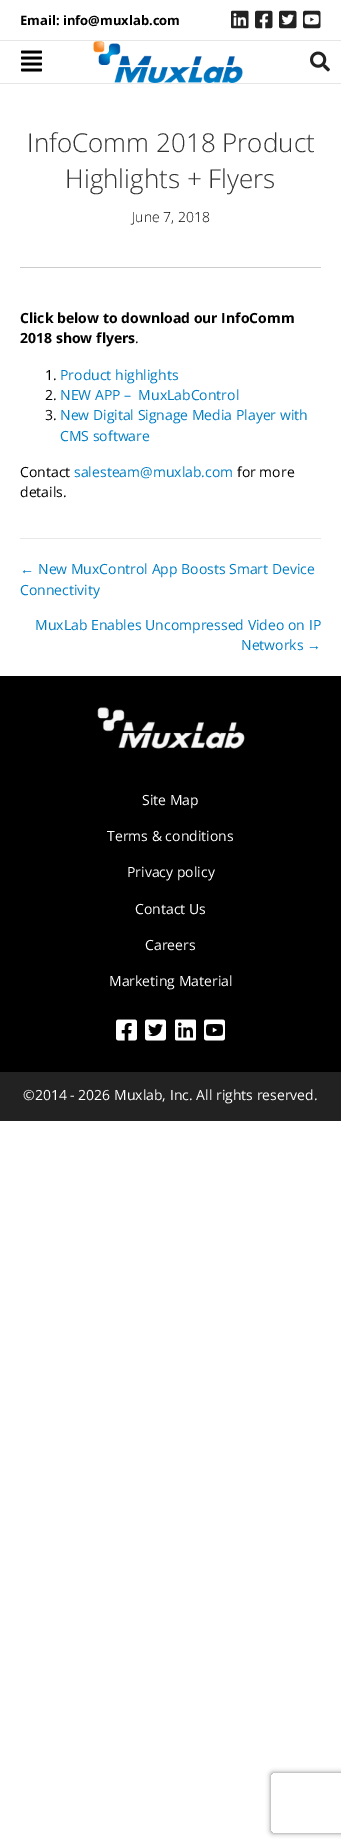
%!PS
<< /PageSize [341 1847] /PageUsesTransparency true >> setpagedevice
/rgb { 3 { 255 div 3 1 roll } repeat setrgbcolor } def
/font { [ exch dup neg 0 0 3 -1 roll 0 0 ] selectfont } def
/alpha { dup .setfillconstantalpha .setstrokeconstantalpha } def
/roundrect { 5 dict begin { /r /h /w /y /x } { exch def } forall
  x r add y moveto x w add y 2 copy h add r arct x w add y h add x 1 index r arct
  x y h add x y r arct x y 2 copy exch w add exch r arct closepath end } def
/shadow { 12 dict begin { /a /b /q /h /w /y /x } { exch def } forall gsave /was 0 def
  9 -2 -9 { dup b mul 4 div /e exch def 1 sub .425 mul 2.718 exch exp 1 add a .99 .min exch div /now exch def
    1 1 now sub 1 was sub div sub alpha /was now def
    w h .min e 2 mul add 0 gt { x e sub y e sub w e 2 mul add h e 2 mul add
      q e add b .6 mul add w h .min 2 div e add .min 0 .max roundrect fill } if } for grestore end } def
/picture { 5 dict begin { /h /w /y /x /name } { exch def } forall
  gsave x y translate w h scale
  w h 8 [w 0 0 h 0 0] name (r) file false 3 colorimage grestore end } def
0 .pushpdf14devicefilter
0 1847 translate 1 -1 scale
4 setmiterlimit
255 255 255 rgb
0 0 341 1847 rectfill
(img/1.rgb) 231 10 18 19 picture
(img/2.rgb) 255 10 18 19 picture
(img/3.rgb) 279 10 18 19 picture
(img/4.rgb) 303 10 18 19 picture
230 230 230 rgb
0 40 341 1 rectfill
0 83 341 1 rectfill
(img/5.rgb) 21 50 21 22 picture
(img/6.rgb) 93 41 150 42 picture
(img/7.rgb) 310 51 20 21 picture
[
  [20 267 301 1 204 204 204]
  [20 538 301 1 232 232 232]
  [0 676 341 396 0 0 0]
] { aload pop rgb rectfill } forall
(img/8.rgb) 97 707 148 42 picture
(img/9.rgb) 116 1019 21 22 picture
(img/10.rgb) 145 1019 21 22 picture
(img/11.rgb) 175 1019 21 22 picture
(img/12.rgb) 204 1019 21 22 picture
34 34 34 rgb
0 1072 341 49 rectfill
gsave
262 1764 moveto 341 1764 lineto 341 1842 lineto 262 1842 lineto closepath 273 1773 moveto 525 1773 lineto 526 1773 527 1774 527 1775 curveto 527 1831 lineto 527 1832 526 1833 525 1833 curveto 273 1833 lineto 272 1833 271 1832 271 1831 curveto 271 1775 lineto 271 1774 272 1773 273 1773 curveto closepath eoclip newpath
128 128 128 rgb
271 1773 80 60 2 2.5 1 shadow
grestore
/OpenSans-Bold 13 font
0 0 0 rgb
20 25 moveto (Email: info@muxlab.com) show
/OpenSans-Light 26 font
51 51 51 rgb
27 152 moveto (InfoComm 2018 Product) show
65 188 moveto (Highlights + Flyers) show
/OpenSans-Light 14 font
0 0 0 rgb
132 222 moveto (June 7, 2018) show
/OpenSans-Bold 14 font
20 323 moveto (Click below to download our InfoComm) show
20 343 moveto (2018 show flyers) show
/OpenSans-Regular 14 font
135 343 moveto (.) show
45 380 moveto (1.) show
0 126 197 rgb
60 380 moveto (Product highlights) show
0 0 0 rgb
45 400 moveto (2.) show
0 126 197 rgb
60 400 moveto (NEW APP –  MuxLabControl) show
0 0 0 rgb
45 420 moveto (3.) show
0 126 197 rgb
60 420 moveto (New Digital Signage Media Player with) show
60 441 moveto (CMS software) show
0 0 0 rgb
20 477 moveto (Contact) show
0 126 197 rgb
74 477 moveto (salesteam@muxlab.com) show
0 0 0 rgb
237 477 moveto (for more) show
20 497 moveto (details.) show
/LiberationSans-Regular 14 font
0 126 197 rgb
20 574 moveto (←) show
/OpenSans-Regular 14 font
[
  [(New MuxControl App Boosts Smart Device) 38 574]
  [(Connectivity) 20 595]
  [(MuxLab Enables Uncompressed Video on IP) 35 630]
  [(Networks) 241 650]
] { aload pop moveto show } forall
/LiberationSans-Regular 14 font
307 650 moveto (→) show
/OpenSans-Regular 14 font
255 255 255 rgb
[
  [(Site Map) 142 805]
  [(Terms & conditions) 107 841]
  [(Privacy policy) 127 877]
  [(Contact Us) 135 914]
  [(Careers) 145 950]
  [(Marketing Material) 109 986]
  [(©2014 - 2026 Muxlab, Inc. All rights reserved.) 23 1100]
] { aload pop moveto show } forall
.poppdf14devicefilter showpage
